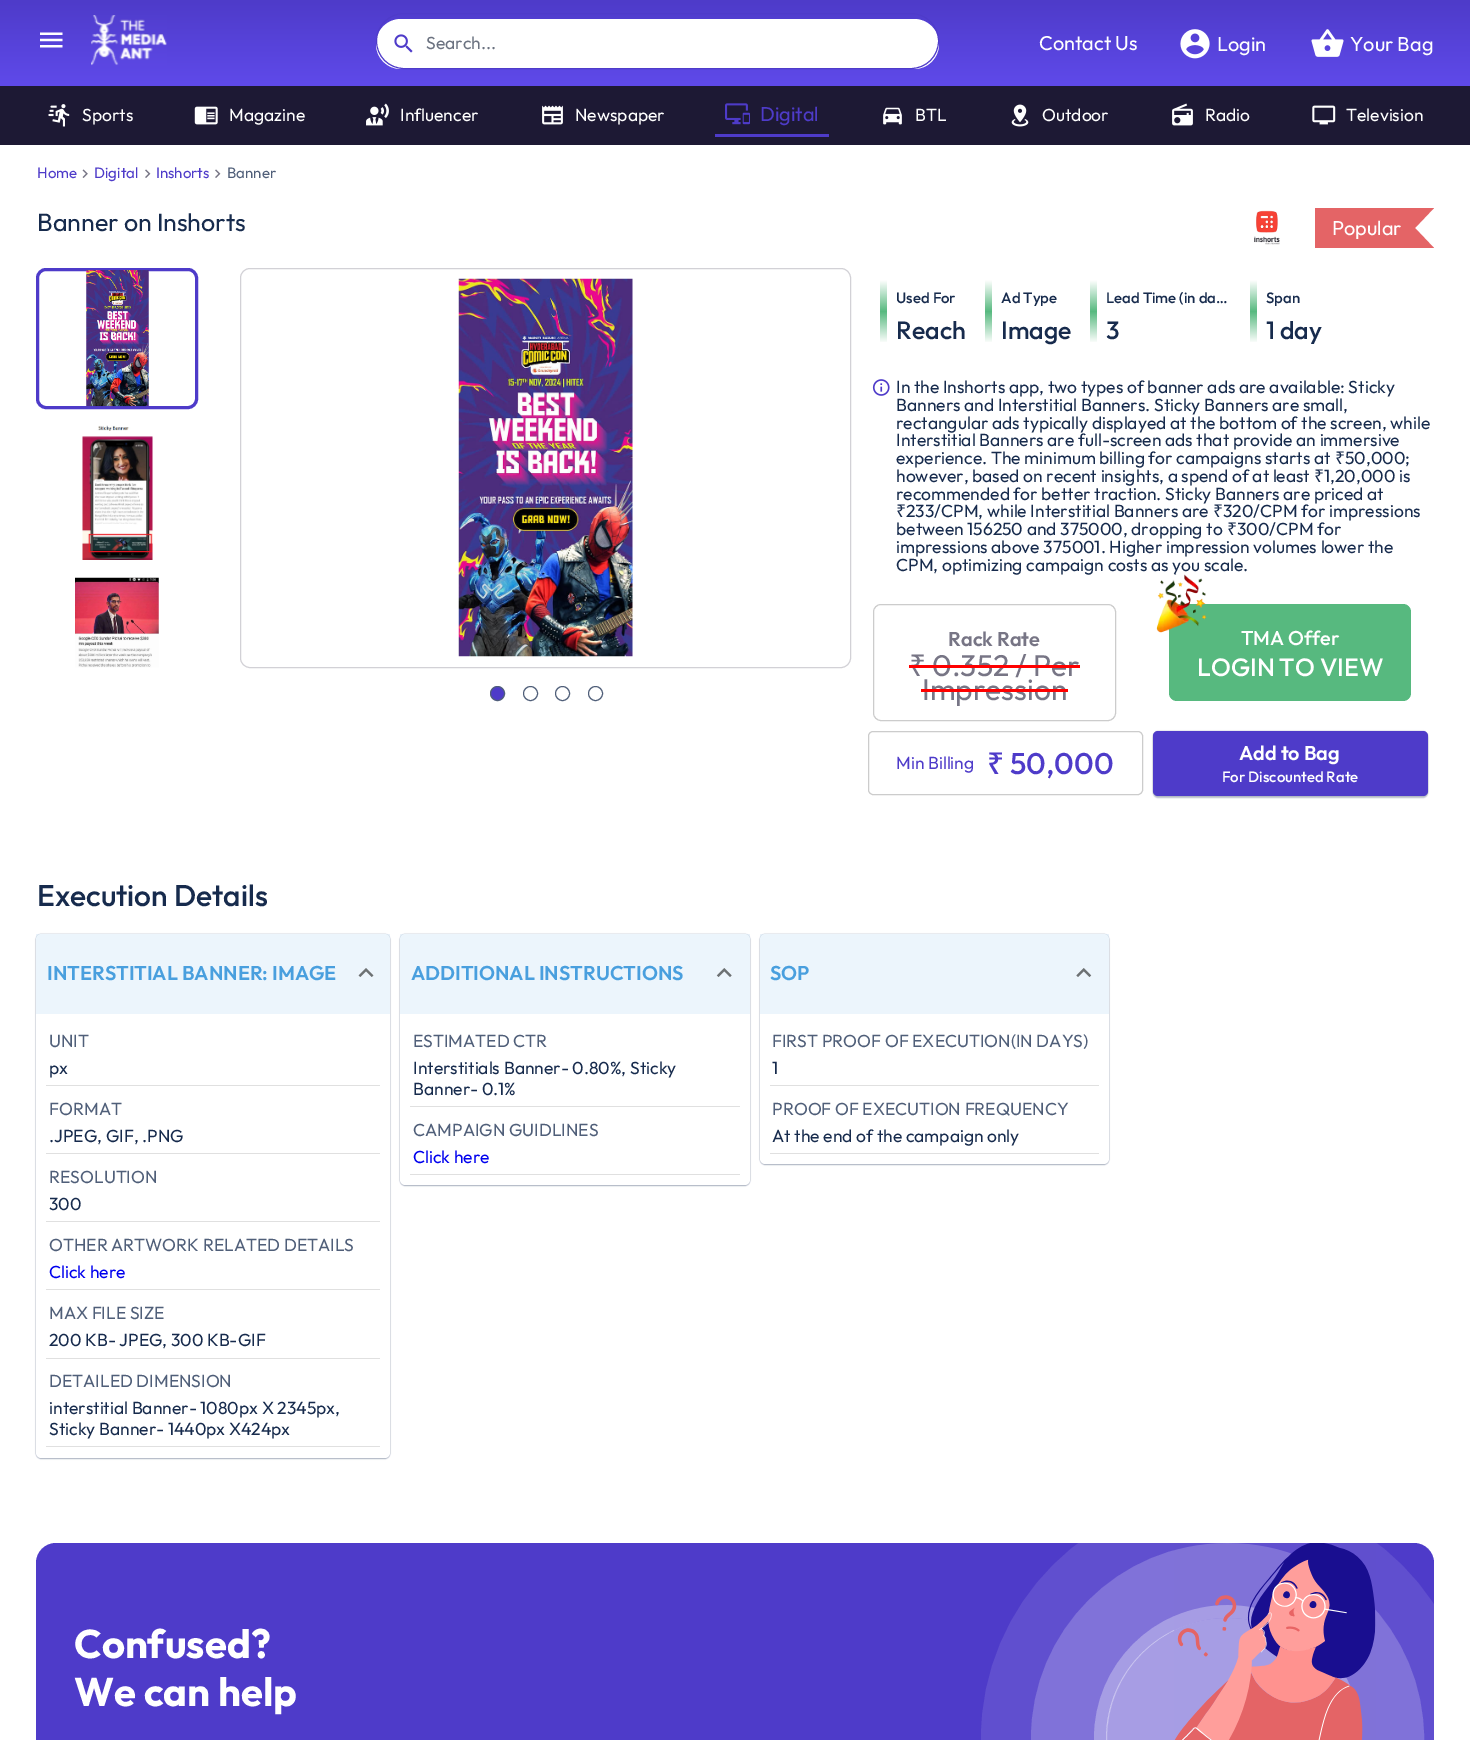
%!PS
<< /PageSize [1470 1740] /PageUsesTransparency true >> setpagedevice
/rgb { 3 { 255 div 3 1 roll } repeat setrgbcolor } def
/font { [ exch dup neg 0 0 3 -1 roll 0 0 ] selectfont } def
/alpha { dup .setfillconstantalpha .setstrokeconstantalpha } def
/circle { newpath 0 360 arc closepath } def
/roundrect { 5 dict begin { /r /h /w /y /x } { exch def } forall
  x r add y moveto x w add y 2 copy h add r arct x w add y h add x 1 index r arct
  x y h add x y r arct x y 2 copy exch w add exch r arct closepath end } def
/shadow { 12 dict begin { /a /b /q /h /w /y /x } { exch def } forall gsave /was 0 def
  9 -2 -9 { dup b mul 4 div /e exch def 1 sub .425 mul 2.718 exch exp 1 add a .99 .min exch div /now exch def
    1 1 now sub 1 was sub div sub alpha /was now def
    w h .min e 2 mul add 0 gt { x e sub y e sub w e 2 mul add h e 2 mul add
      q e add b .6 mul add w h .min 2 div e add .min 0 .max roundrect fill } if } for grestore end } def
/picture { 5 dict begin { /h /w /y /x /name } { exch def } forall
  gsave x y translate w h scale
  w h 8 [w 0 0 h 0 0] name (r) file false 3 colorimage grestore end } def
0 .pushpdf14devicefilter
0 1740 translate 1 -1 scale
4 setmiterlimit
255 255 255 rgb
0 0 1470 1740 rectfill
gsave 0 0 moveto 1470 0 lineto 1470 86 lineto 0 86 lineto closepath clip newpath
<< /ShadingType 2 /ColorSpace /DeviceRGB /Coords [735 86 735 0] /Extend [true true] /Function << /FunctionType 2 /Domain [0 1] /C0 [0.373 0.29 0.918] /C1 [0.306 0.231 0.788] /N 1 >> >> shfill grestore
(img/1.rgb) 40 32 23 16 picture
(img/2.rgb) 91 15 76 51 picture
376 19 563 50 25 roundrect fill
78 59 201 rgb
376.5 13.5 562 55 27.5 roundrect stroke
(img/3.rgb) 394 34 19 19 picture
(img/4.rgb) 1180 29 30 30 picture
(img/5.rgb) 1311 29 33 28 picture
29 25 52 rgb
0 86 1470 59 rectfill
(img/6.rgb) 48 104 22 23 picture
(img/7.rgb) 194 106 24 19 picture
(img/8.rgb) 366 103 23 23 picture
(img/9.rgb) 542 105 21 20 picture
78 59 201 rgb
715 134 114 3 rectfill
(img/10.rgb) 725 103 25 22 picture
(img/11.rgb) 883 107 19 18 picture
(img/12.rgb) 1011 104 18 23 picture
(img/13.rgb) 1172 103 21 23 picture
(img/14.rgb) 1312 105 24 20 picture
(img/15.rgb) 82 169 6 9 picture
(img/16.rgb) 145 169 6 9 picture
(img/16.rgb) 215 169 6 9 picture
(img/17.rgb) 1254 210 26 35 picture
228 100 102 rgb
1315 208 moveto 1434 208 lineto 1415 228 lineto 1315 228 lineto closepath fill
1434 248 moveto 1315 248 lineto 1315 228 lineto 1415 228 lineto closepath fill
78 59 201 rgb
3 setlinewidth
37.5 269.5 159 138 8.5 roundrect stroke
(img/18.rgb) 86 270 63 137 picture
(img/19.rgb) 82 425 71 135 picture
(img/20.rgb) 75 577 84 91 picture
210 209 214 rgb
1 setlinewidth
240.5 268.5 610 399 9.5 roundrect stroke
(img/21.rgb) 458 278 175 379 picture
78 59 201 rgb
497.5 693.5 7 circle gsave fill grestore
80 95 121 rgb
stroke
530.5 693.5 7 circle stroke
562.5 693.5 7 circle stroke
595.5 693.5 7 circle stroke
gsave 880 280 moveto 887 280 lineto 887 343 lineto 880 343 lineto closepath clip newpath
<< /ShadingType 2 /ColorSpace /DeviceRGB /Coords [884 280 884 343] /Extend [true true] /Function << /FunctionType 3 /Domain [0 1] /Functions [<< /FunctionType 2 /Domain [0 1] /C0 [1 1 1] /C1 [0.341 0.725 0.498] /N 1 >> << /FunctionType 2 /Domain [0 1] /C0 [0.341 0.725 0.498] /C1 [1 1 1] /N 1 >>] /Bounds [0.5] /Encode [0 1 0 1] >> >> shfill grestore
gsave 985 280 moveto 992 280 lineto 992 343 lineto 985 343 lineto closepath clip newpath
<< /ShadingType 2 /ColorSpace /DeviceRGB /Coords [989 280 989 343] /Extend [true true] /Function << /FunctionType 3 /Domain [0 1] /Functions [<< /FunctionType 2 /Domain [0 1] /C0 [1 1 1] /C1 [0.341 0.725 0.498] /N 1 >> << /FunctionType 2 /Domain [0 1] /C0 [0.341 0.725 0.498] /C1 [1 1 1] /N 1 >>] /Bounds [0.5] /Encode [0 1 0 1] >> >> shfill grestore
gsave 1090 280 moveto 1097 280 lineto 1097 343 lineto 1090 343 lineto closepath clip newpath
<< /ShadingType 2 /ColorSpace /DeviceRGB /Coords [1094 280 1094 343] /Extend [true true] /Function << /FunctionType 3 /Domain [0 1] /Functions [<< /FunctionType 2 /Domain [0 1] /C0 [1 1 1] /C1 [0.341 0.725 0.498] /N 1 >> << /FunctionType 2 /Domain [0 1] /C0 [0.341 0.725 0.498] /C1 [1 1 1] /N 1 >>] /Bounds [0.5] /Encode [0 1 0 1] >> >> shfill grestore
gsave 1250 280 moveto 1257 280 lineto 1257 343 lineto 1250 343 lineto closepath clip newpath
<< /ShadingType 2 /ColorSpace /DeviceRGB /Coords [1254 280 1254 343] /Extend [true true] /Function << /FunctionType 3 /Domain [0 1] /Functions [<< /FunctionType 2 /Domain [0 1] /C0 [1 1 1] /C1 [0.341 0.725 0.498] /N 1 >> << /FunctionType 2 /Domain [0 1] /C0 [0.341 0.725 0.498] /C1 [1 1 1] /N 1 >>] /Bounds [0.5] /Encode [0 1 0 1] >> >> shfill grestore
(img/22.rgb) 872 379 18 17 picture
204 204 204 rgb
873.5 604.5 242 116 7.5 roundrect stroke
87 185 127 rgb
1169 604 242 97 8 roundrect fill
204 204 204 rgb
868.5 731.5 274 63 4.5 roundrect stroke
9 30 66 rgb
1153 731 275 65 5 0.5 0.31 shadow
1153 733 275 65 5 0.5 0.25 shadow
78 59 201 rgb
1153 731 275 65 5 roundrect fill
9 30 66 rgb
36 934 354 524 5 0.5 0.31 shadow
36 935 354 524 5 0.5 0.25 shadow
255 255 255 rgb
36 934 354 524 5 roundrect fill
0.1 alpha
73 159 222 rgb
36 934 354 80 rectfill
1 alpha
(img/24.rgb) 358 968 16 9 picture
[
  [46 1085 334 1 224 224 224]
  [46 1153 334 1 224 224 224]
  [46 1221 334 1 224 224 224]
  [46 1289 334 1 224 224 224]
  [46 1358 334 1 224 224 224]
  [46 1446 334 1 224 224 224]
] { aload pop rgb rectfill } forall
9 30 66 rgb
400 934 350 251 5 0.5 0.31 shadow
400 935 350 251 5 0.5 0.25 shadow
255 255 255 rgb
400 934 350 251 5 roundrect fill
0.1 alpha
73 159 222 rgb
400 934 350 80 rectfill
1 alpha
(img/25.rgb) 716 968 16 9 picture
224 224 224 rgb
410 1106 330 1 rectfill
410 1174 330 1 rectfill
9 30 66 rgb
760 934 349 230 5 0.5 0.31 shadow
760 935 349 230 5 0.5 0.25 shadow
255 255 255 rgb
760 934 349 230 5 roundrect fill
0.1 alpha
73 159 222 rgb
760 934 349 80 rectfill
1 alpha
(img/26.rgb) 1076 968 16 9 picture
224 224 224 rgb
770 1085 329 1 rectfill
770 1153 329 1 rectfill
78 59 201 rgb
36 1543 1398 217 20 roundrect fill
0.1 alpha
255 255 255 rgb
125 setlinewidth
1043.5 1555.5 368 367 183.5 roundrect stroke
0.2 alpha
75 setlinewidth
1068.5 1580.5 318 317 158.5 roundrect stroke
0.3 alpha
13 setlinewidth
1100.5 1611.5 254 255 127 roundrect stroke
0.5 alpha
1106 1618 243 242 121 roundrect fill
1 alpha
(img/27.rgb) 1174 1543 202 197 picture
/Outfit-Thin 17.5 font
107 114 128 rgb
426 49 moveto (Search...) show
/Outfit-Thin 20 font
255 255 255 rgb
[
  [(Contact Us) 1039 50]
  [(Login) 1217 51]
  [(Your Bag) 1350 51]
] { aload pop moveto show } forall
/Outfit-Thin 17.5 font
[
  [(Sports) 82 121]
  [(Magazine) 229 121]
  [(Influencer) 400 121]
  [(Newspaper) 575 121]
] { aload pop moveto show } forall
/Outfit-Thin 20 font
78 59 201 rgb
760 121 moveto (Digital) show
/Outfit-Thin 17.5 font
255 255 255 rgb
[
  [(BTL) 915 121]
  [(Outdoor) 1042 121]
  [(Radio) 1205 121]
  [(Television) 1346 121]
] { aload pop moveto show } forall
/Outfit-Thin 15 font
78 59 201 rgb
[
  [(Home) 37 178]
  [(Digital) 94 178]
  [(Inshorts) 156 178]
] { aload pop moveto show } forall
80 95 121 rgb
227 178 moveto (Banner) show
/Outfit-Thin 25 font
23 43 77 rgb
37 231 moveto (Banner on Inshorts) show
/Outfit-Thin 20 font
255 255 255 rgb
1332 235 moveto (Popular) show
/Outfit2-Thin 15 font
23 43 77 rgb
896 303 moveto (Used For) show
/Outfit2-Thin 25 font
896 339 moveto (Reach) show
/Outfit2-Thin 15 font
1001 303 moveto (Ad Type) show
/Outfit2-Thin 25 font
1001 339 moveto (Image) show
/Outfit2-Thin 15 font
1106 303 moveto (Lead Time \(in da…) show
/Outfit2-Thin 25 font
1106 339 moveto (3) show
/Outfit2-Thin 15 font
1266 303 moveto (Span) show
/Outfit2-Thin 25 font
1266 339 moveto (1 day) show
/Outfit-Thin 17.5 font
[
  [(In the Inshorts app, two types of banner ads are available: Sticky) 896 393]
  [(Banners and Interstitial Banners. Sticky Banners are small,) 896 411]
  [(rectangular ads typically displayed at the bottom of the screen, while) 896 429]
  [(Interstitial Banners are full-screen ads that provide an immersive) 896 446]
  [(experience. The minimum billing for campaigns starts at) 896 464]
] { aload pop moveto show } forall
/NotoSans-Regular 17.5 font
1335 464 moveto (₹) show
/Outfit-Thin 17.5 font
1345 464 moveto (50,000;) show
896 482 moveto (however, based on recent insights, a spend of at least) show
/NotoSans-Regular 17.5 font
1314 482 moveto (₹) show
/Outfit-Thin 17.5 font
1324 482 moveto (1,20,000 is) show
896 500 moveto (recommended for better traction. Sticky Banners are priced at) show
/NotoSans-Regular 17.5 font
896 517 moveto (₹) show
/Outfit-Thin 17.5 font
906 517 moveto (233/CPM, while Interstitial Banners are) show
/NotoSans-Regular 17.5 font
1213 517 moveto (₹) show
/Outfit-Thin 17.5 font
1223 517 moveto (320/CPM for impressions) show
896 535 moveto (between 156250 and 375000, dropping to) show
/NotoSans-Regular 17.5 font
1227 535 moveto (₹) show
/Outfit-Thin 17.5 font
[
  [(300/CPM for) 1237 535]
  [(impressions above 375001. Higher impression volumes lower the) 896 553]
  [(CPM, optimizing campaign costs as you scale.) 896 571]
] { aload pop moveto show } forall
/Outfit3-Thin 20 font
119 117 133 rgb
948 646 moveto (Rack Rate) show
/NotoSans-Regular 30 font
909 676 moveto (₹) show
/Outfit-Thin 30 font
932 676 moveto (0.352 / Per) show
255 0 0 rgb
909 665 171 3 rectfill
119 117 133 rgb
922 700 moveto (Impression) show
255 0 0 rgb
921 689 147 3 rectfill
(img/23.rgb) 1156 574 51 59 picture
/Outfit2-Thin 20 font
255 255 255 rgb
1241 645 moveto (TMA Offer) show
/Outfit2-Thin 25 font
1197 676 moveto (LOGIN TO VIEW) show
/Outfit-Thin 17.5 font
78 59 201 rgb
896 769 moveto (Min Billing) show
/NotoSans-Medium 30 font
987 774 moveto (₹) show
/Outfit2-Thin 30 font
1010 774 moveto (50,000) show
/Outfit3-Thin 20 font
255 255 255 rgb
1239 760 moveto (Add to Bag) show
/Outfit2-Thin 15 font
1222 782 moveto (For Discounted Rate) show
/Outfit2-Thin 30 font
23 43 77 rgb
37 906 moveto (Execution Details) show
/Outfit3-Thin 20 font
73 159 222 rgb
47 980 moveto (INTERSTITIAL BANNER: IMAGE) show
/Outfit-Thin 17.5 font
80 95 121 rgb
49 1047 moveto (UNIT) show
23 43 77 rgb
49 1074 moveto (px) show
80 95 121 rgb
49 1115 moveto (FORMAT) show
23 43 77 rgb
49 1142 moveto (.JPEG, GIF, .PNG) show
80 95 121 rgb
49 1183 moveto (RESOLUTION) show
23 43 77 rgb
49 1210 moveto (300) show
80 95 121 rgb
49 1251 moveto (OTHER ARTWORK RELATED DETAILS) show
0 0 238 rgb
49 1278 moveto (Click here) show
80 95 121 rgb
49 1319 moveto (MAX FILE SIZE) show
23 43 77 rgb
49 1346 moveto (200 KB- JPEG, 300 KB-GIF) show
80 95 121 rgb
49 1387 moveto (DETAILED DIMENSION) show
23 43 77 rgb
49 1414 moveto (interstitial Banner- 1080px X 2345px,) show
49 1435 moveto (Sticky Banner- 1440px X424px) show
/Outfit3-Thin 20 font
73 159 222 rgb
411 980 moveto (ADDITIONAL INSTRUCTIONS) show
/Outfit-Thin 17.5 font
80 95 121 rgb
413 1047 moveto (ESTIMATED CTR) show
23 43 77 rgb
413 1074 moveto (Interstitials Banner- 0.80%, Sticky) show
413 1095 moveto (Banner- 0.1%) show
80 95 121 rgb
413 1136 moveto (CAMPAIGN GUIDLINES) show
0 0 238 rgb
413 1163 moveto (Click here) show
/Outfit3-Thin 20 font
73 159 222 rgb
770 980 moveto (SOP) show
/Outfit-Thin 17.5 font
80 95 121 rgb
772 1047 moveto (FIRST PROOF OF EXECUTION\(IN DAYS\)) show
23 43 77 rgb
772 1074 moveto (1) show
80 95 121 rgb
772 1115 moveto (PROOF OF EXECUTION FREQUENCY) show
23 43 77 rgb
772 1142 moveto (At the end of the campaign only) show
/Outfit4-Thin 40 font
255 255 255 rgb
74 1658 moveto (Confused?) show
74 1706 moveto (We can help) show
.poppdf14devicefilter showpage
